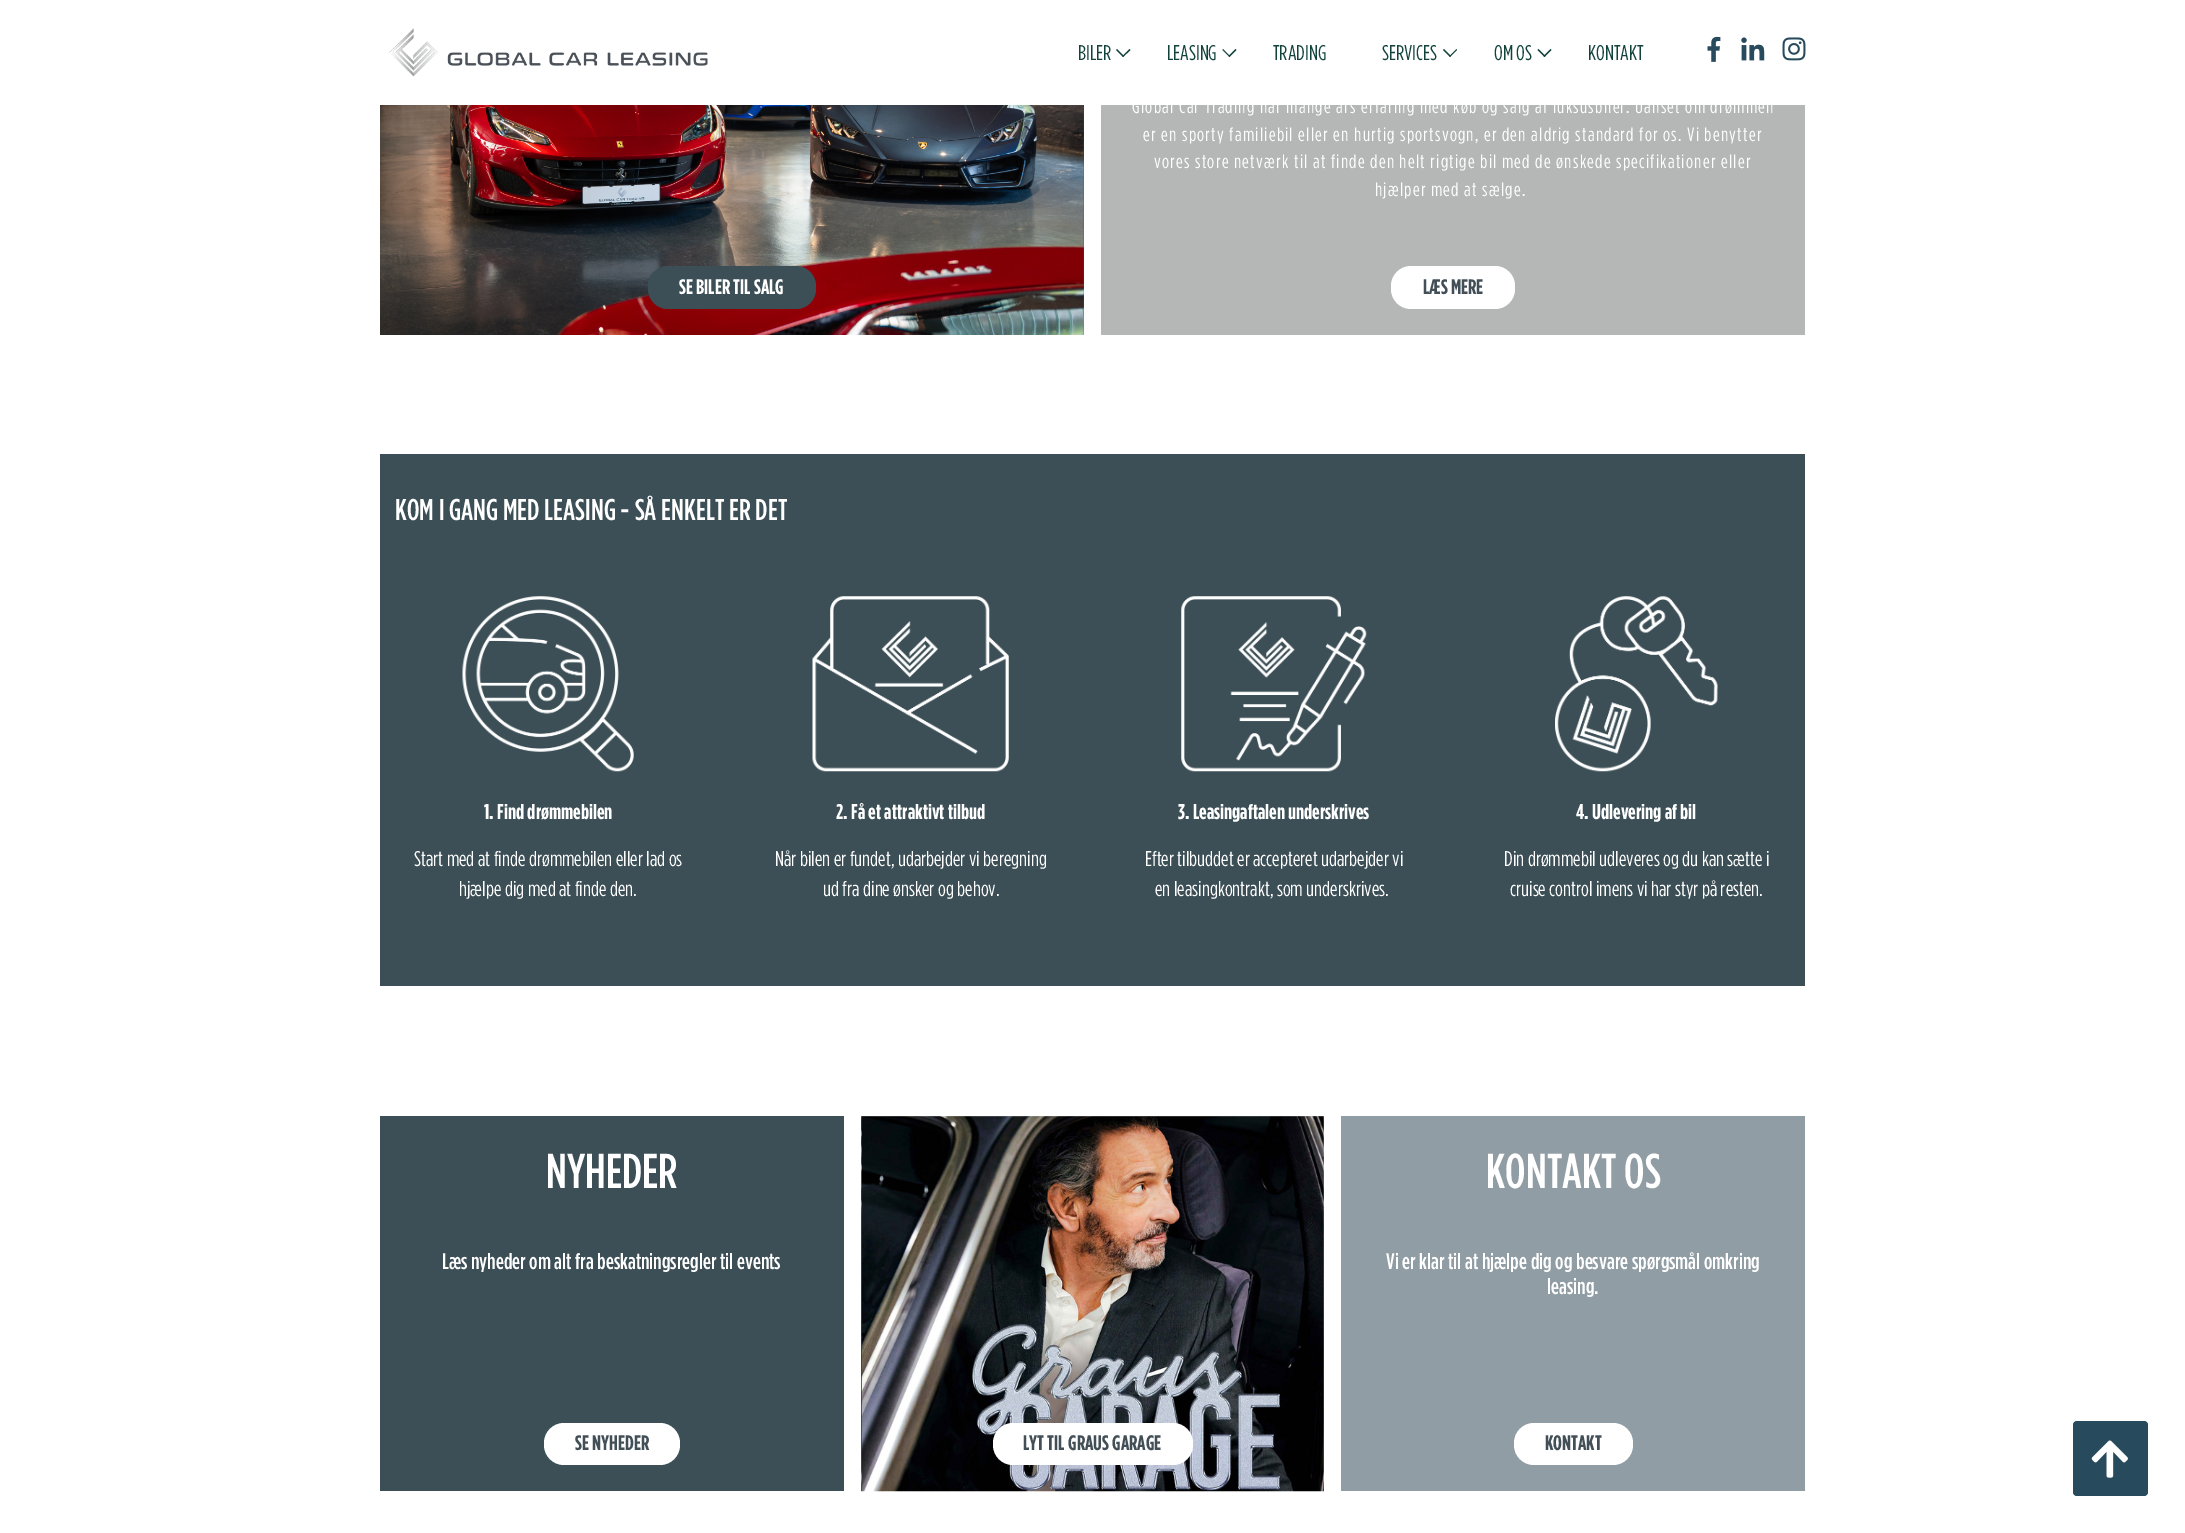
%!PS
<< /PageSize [2185 1533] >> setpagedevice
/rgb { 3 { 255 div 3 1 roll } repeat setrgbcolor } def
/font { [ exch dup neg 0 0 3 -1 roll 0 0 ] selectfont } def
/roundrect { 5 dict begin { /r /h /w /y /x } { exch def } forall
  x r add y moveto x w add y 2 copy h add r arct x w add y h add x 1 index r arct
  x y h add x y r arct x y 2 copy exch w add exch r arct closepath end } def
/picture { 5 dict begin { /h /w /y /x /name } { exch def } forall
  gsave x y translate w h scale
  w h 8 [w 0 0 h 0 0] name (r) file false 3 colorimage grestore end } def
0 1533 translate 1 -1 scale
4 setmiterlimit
255 255 255 rgb
0 0 2185 1533 rectfill
(img/1.rgb) 389 28 319 49 picture
18 66 60 rgb
1130.5 50 moveto 1123 57 lineto 1122.5 56 lineto 1129.5 49 lineto closepath fill
1124 56 moveto 1123 57 lineto 1116 50 lineto 1117 49 lineto closepath fill
1236.5 50 moveto 1229.5 57 lineto 1228.5 56 lineto 1235.5 49 lineto closepath fill
1230 56 moveto 1229.5 57 lineto 1222.5 50 lineto 1223 49 lineto closepath fill
1457 50 moveto 1450 57 lineto 1449.5 56 lineto 1456.5 49 lineto closepath fill
1451 56 moveto 1450 57 lineto 1443 50 lineto 1444 49 lineto closepath fill
1551.5 50 moveto 1544.5 57 lineto 1543.5 56 lineto 1550.5 49 lineto closepath fill
1545.5 56 moveto 1544.5 57 lineto 1537.5 50 lineto 1538.5 49 lineto closepath fill
(img/2.rgb) 1707 36 14 26 picture
(img/3.rgb) 1741 37 24 24 picture
(img/4.rgb) 1782 37 24 24 picture
(img/5.rgb) 380 105 704 230 picture
60 79 86 rgb
648 266 168 43 20 roundrect fill
181 183 183 rgb
1101 105 704 230 rectfill
255 255 255 rgb
1391 266 124 43 20 roundrect fill
60 79 86 rgb
380 454 1425 532 rectfill
(img/6.rgb) 462 596 172 176 picture
(img/7.rgb) 812 596 197 176 picture
(img/8.rgb) 1181 596 186 176 picture
(img/9.rgb) 1555 596 163 176 picture
380 1116 464 375 rectfill
255 255 255 rgb
544 1423 136 42 20 roundrect fill
181 183 183 rgb
861 1116 463 375 rectfill
(img/10.rgb) 861 1116 463 376 picture
255 255 255 rgb
993 1423 200 42 20 roundrect fill
145 157 164 rgb
1341 1116 464 375 rectfill
255 255 255 rgb
1514 1423 119 42 20 roundrect fill
39 75 93 rgb
2073 1421 75 75 4 roundrect fill
(img/11.rgb) 2091 1440 37 38 picture
/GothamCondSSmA-Regular 21.25 font
18 66 60 rgb
[
  [(BILER) 1078 60]
  [(LEASING) 1167 60]
  [(TRADING) 1273 60]
  [(SERVICES) 1382 60]
  [(OM OS) 1494 60]
  [(KONTAKT) 1588 60]
] { aload pop moveto show } forall
/GothamCondSSmA-Bold 21 font
255 255 255 rgb
679 294 moveto (SE BILER TIL SALG) show
/GothamCondSSmA-Regular 19.25 font
1132 113 moveto 1.25 0 (Global Car Trading har mange års erfaring med køb og salg af luksusbiler. Uanset om drømmen) ashow
1143 141 moveto 1.25 0 (er en sporty familiebil eller en hurtig sportsvogn, er den aldrig standard for os. Vi benytter) ashow
1154 168 moveto 1.25 0 (vores store netværk til at finde den helt rigtige bil med de ønskede specifikationer eller) ashow
1375 196 moveto 1.25 0 (hjælper med at sælge.) ashow
/GothamCondSSmA-Bold 21 font
66 79 87 rgb
1423 294 moveto (LÆS MERE) show
/GothamCondSSmA-Medium 30 font
255 255 255 rgb
395 520 moveto (KOM I GANG MED LEASING - SÅ ENKELT ER DET) show
/GothamCondSSmA-Bold 21.25 font
484 819 moveto (1. Find drømmebilen) show
/GothamCondSSmA-Regular 21.25 font
414 866 moveto (Start med at finde drømmebilen eller lad os) show
459 896 moveto (hjælpe dig med at finde den.) show
/GothamCondSSmA-Bold 21.25 font
836 819 moveto (2. Få et attraktivt tilbud) show
/GothamCondSSmA-Regular 21.25 font
775 866 moveto (Når bilen er fundet, udarbejder vi beregning) show
823 896 moveto (ud fra dine ønsker og behov.) show
/GothamCondSSmA-Bold 21.25 font
1178 819 moveto (3. Leasingaftalen underskrives) show
/GothamCondSSmA-Regular 21.25 font
1145 866 moveto (Efter tilbuddet er accepteret udarbejder vi) show
1155 896 moveto (en leasingkontrakt, som underskrives.) show
/GothamCondSSmA-Bold 21.25 font
1576 819 moveto (4. Udlevering af bil) show
/GothamCondSSmA-Regular 21.25 font
1504 866 moveto (Din drømmebil udleveres og du kan sætte i) show
1510 896 moveto (cruise control imens vi har styr på resten.) show
/GothamCondSSmA-Medium 49 font
546 1188 moveto (NYHEDER) show
/GothamCondSSmA-Medium 22.5 font
442 1269 moveto (Læs nyheder om alt fra beskatningsregler til events) show
/GothamCondSSmA-Bold 21 font
66 79 87 rgb
575 1450 moveto (SE NYHEDER) show
1023 1450 moveto (LYT TIL GRAUS GARAGE) show
/GothamCondSSmA-Medium 49 font
255 255 255 rgb
1486 1188 moveto (KONTAKT OS) show
/GothamCondSSmA-Medium 22.5 font
1386 1269 moveto (Vi er klar til at hjælpe dig og besvare spørgsmål omkring) show
1547 1294 moveto (leasing.) show
/GothamCondSSmA-Bold 21 font
66 79 87 rgb
1545 1450 moveto (KONTAKT) show
showpage
